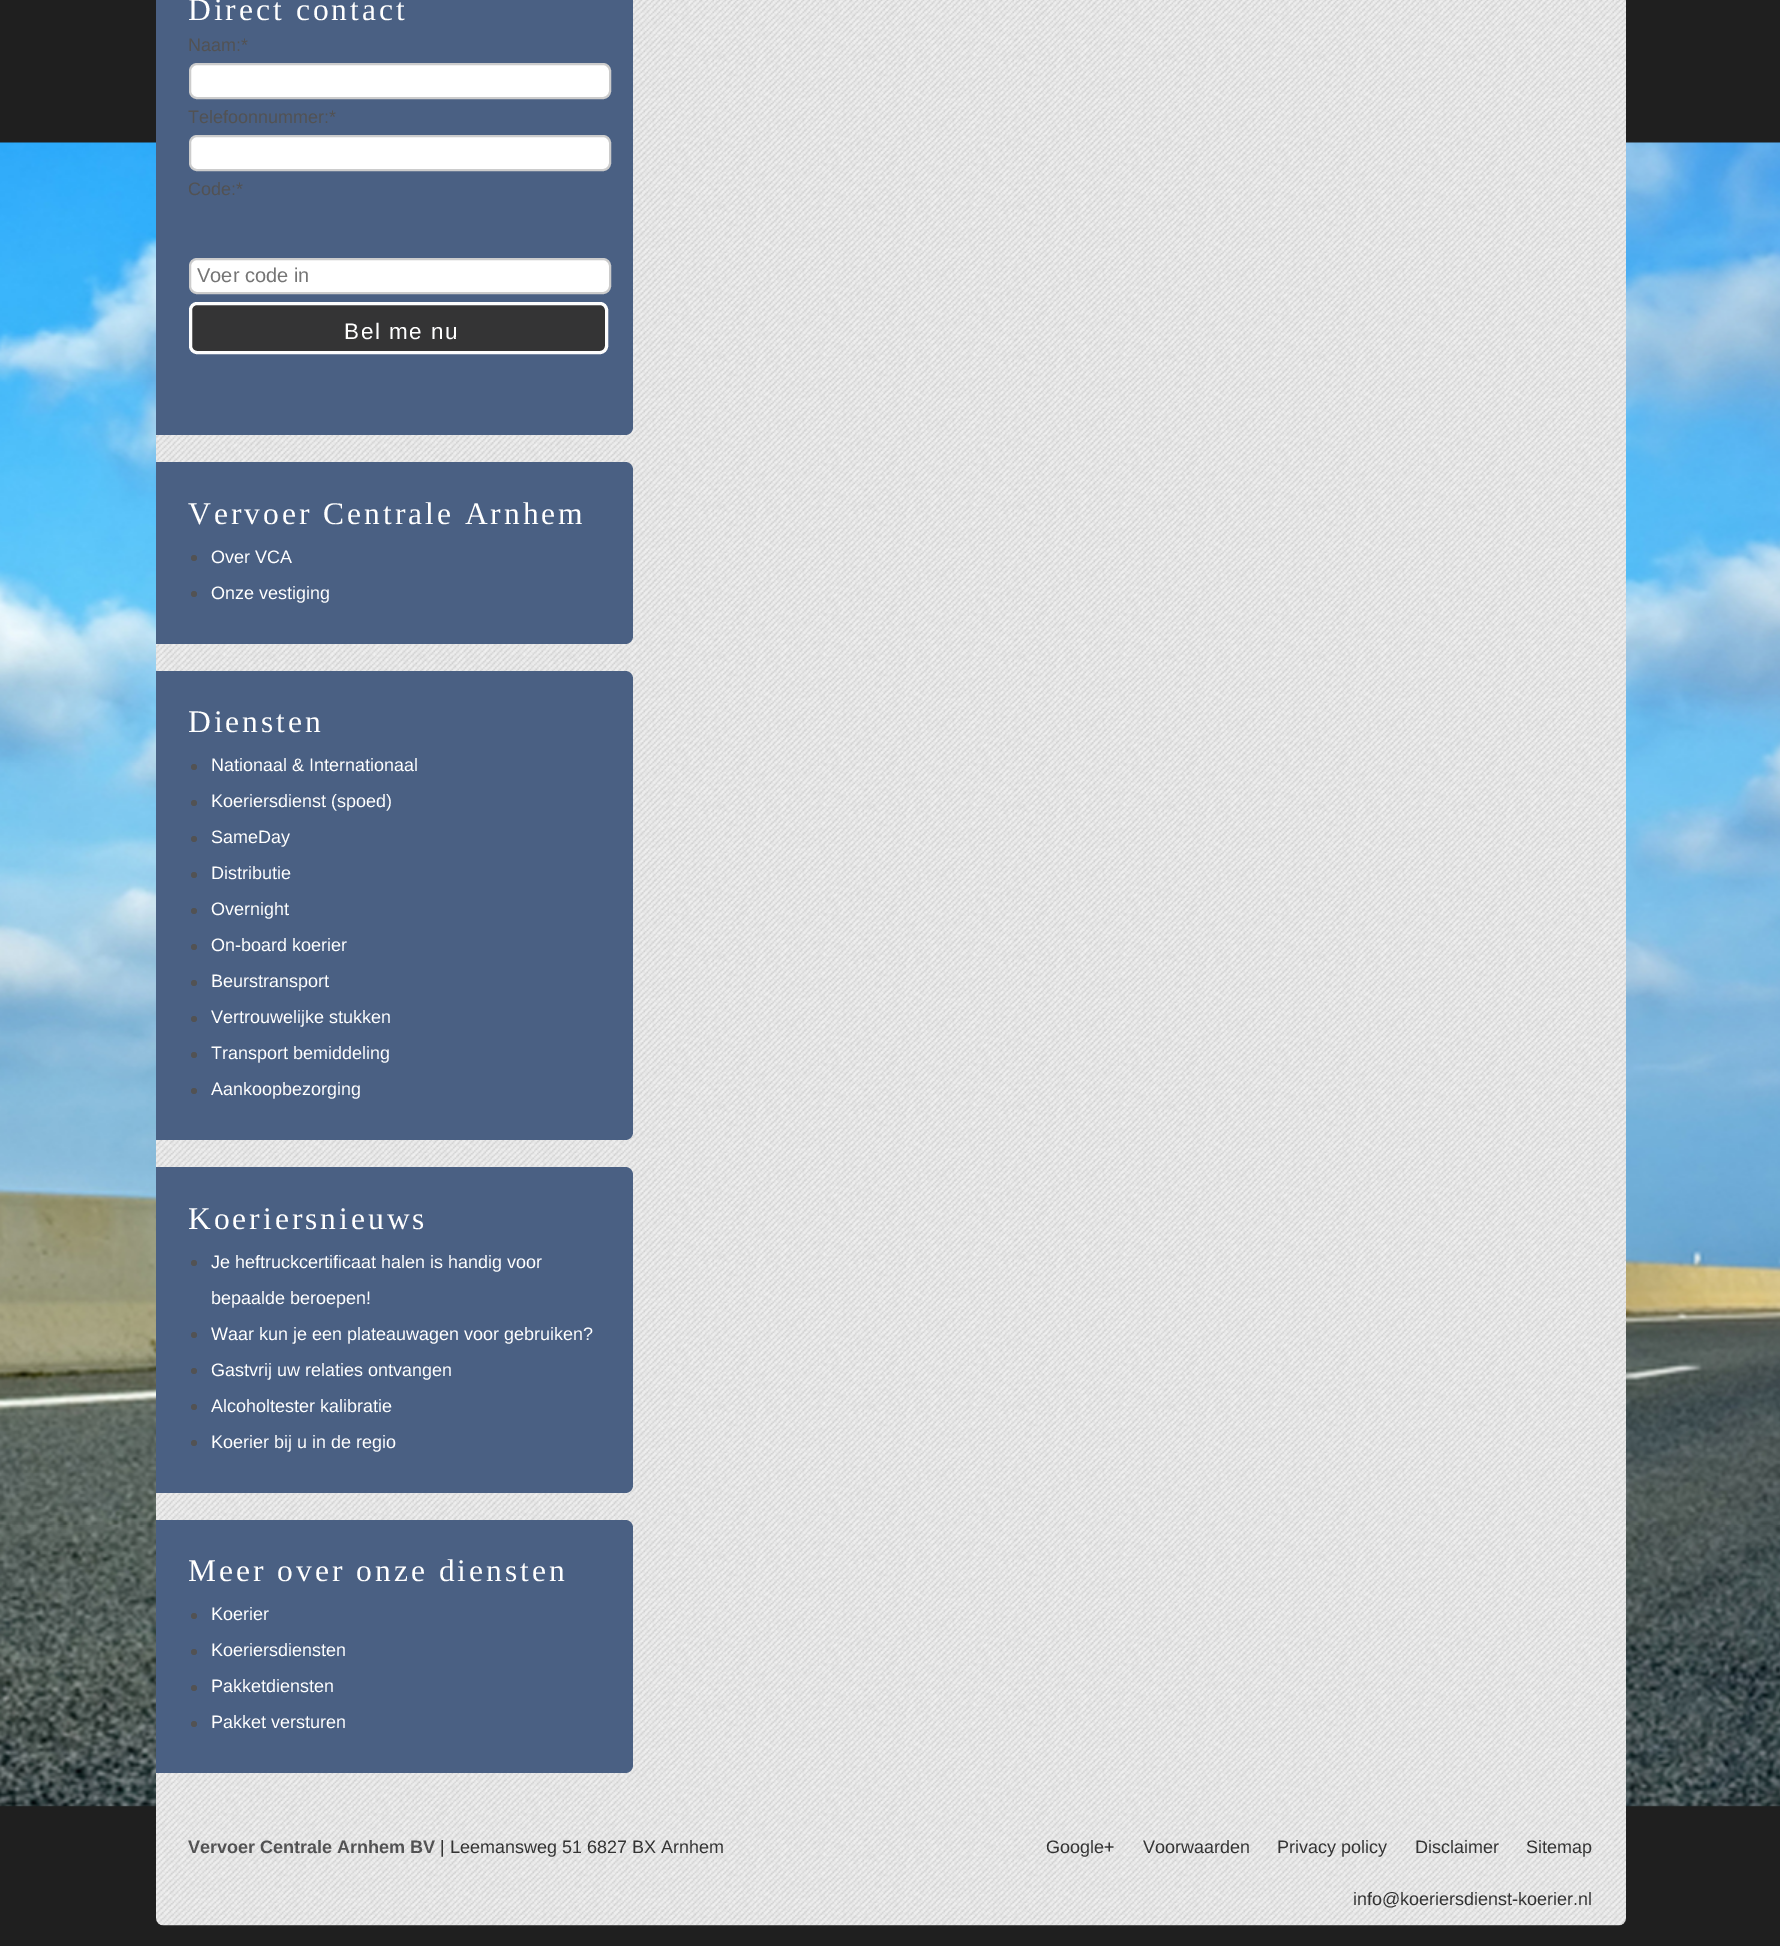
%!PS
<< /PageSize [1780 1946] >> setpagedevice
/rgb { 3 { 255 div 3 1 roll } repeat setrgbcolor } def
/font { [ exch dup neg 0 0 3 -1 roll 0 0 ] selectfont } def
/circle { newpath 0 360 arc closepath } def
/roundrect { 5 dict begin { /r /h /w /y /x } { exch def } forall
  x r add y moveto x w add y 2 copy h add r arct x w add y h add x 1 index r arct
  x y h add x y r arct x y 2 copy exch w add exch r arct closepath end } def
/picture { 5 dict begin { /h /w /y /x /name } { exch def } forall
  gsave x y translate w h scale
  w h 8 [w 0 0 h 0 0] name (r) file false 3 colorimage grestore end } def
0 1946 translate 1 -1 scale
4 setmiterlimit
31 31 31 rgb
0 0 1780 1946 rectfill
(img/1.rgb) 0 142 1780 1665 picture
(img/2.rgb) 156 0 1470 1926 picture
74 96 131 rgb
156 -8 moveto 625 -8 lineto 629.5 -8 633 -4.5 633 0 curveto 633 427 lineto 633 431.5 629.5 435 625 435 curveto 156 435 lineto closepath fill
255 255 255 rgb
190 64 420 34 7 roundrect gsave fill grestore
204 204 204 rgb
2 setlinewidth
stroke
255 255 255 rgb
190 136 420 34 7 roundrect gsave fill grestore
204 204 204 rgb
stroke
255 255 255 rgb
190 259 420 34 7 roundrect gsave fill grestore
204 204 204 rgb
stroke
52 52 53 rgb
190.5 303.5 416 49 6.5 roundrect gsave fill grestore
253 253 253 rgb
3 setlinewidth
stroke
74 96 131 rgb
156 462 moveto 625 462 lineto 629.5 462 633 465.5 633 470 curveto 633 636 lineto 633 640.5 629.5 644 625 644 curveto 156 644 lineto closepath fill
82 82 83 rgb
194 558 3 circle fill
194 594 3 circle fill
74 96 131 rgb
156 671 moveto 625 671 lineto 629.5 671 633 674.5 633 679 curveto 633 1132 lineto 633 1136.5 629.5 1140 625 1140 curveto 156 1140 lineto closepath fill
82 82 83 rgb
194 767 3 circle fill
194 803 3 circle fill
194 839 3 circle fill
194 875 3 circle fill
194 911 3 circle fill
194 947 3 circle fill
194 983 3 circle fill
194 1019 3 circle fill
194 1055 3 circle fill
194 1091 3 circle fill
74 96 131 rgb
156 1167 moveto 625 1167 lineto 629.5 1167 633 1170.5 633 1175 curveto 633 1485 lineto 633 1489.5 629.5 1493 625 1493 curveto 156 1493 lineto closepath fill
82 82 83 rgb
194 1263 3 circle fill
194 1335 3 circle fill
194 1371 3 circle fill
194 1407 3 circle fill
194 1443 3 circle fill
74 96 131 rgb
156 1520 moveto 625 1520 lineto 629.5 1520 633 1523.5 633 1528 curveto 633 1765 lineto 633 1769.5 629.5 1773 625 1773 curveto 156 1773 lineto closepath fill
82 82 83 rgb
194 1616 3 circle fill
194 1652 3 circle fill
194 1688 3 circle fill
194 1724 3 circle fill
/LiberationSerif-Regular 31.5 font
255 255 255 rgb
188 20 moveto 3 0 (Direct contact) ashow
/LiberationSans-Regular 18 font
82 82 83 rgb
[
  [(Naam:*) 188 51]
  [(Telefoonnummer:*) 188 123]
  [(Code:*) 188 195]
] { aload pop moveto show } forall
/LiberationSans-Regular 20 font
117 117 117 rgb
197 282 moveto (Voer code in) show
/LiberationSans-Regular 22.5 font
255 255 255 rgb
344 339 moveto 1.5 0 (Bel me nu) ashow
/LiberationSerif-Regular 31.5 font
188 524 moveto 3 0 (Vervoer Centrale Arnhem) ashow
/LiberationSans-Regular 18 font
211 563 moveto (Over VCA) show
211 599 moveto (Onze vestiging) show
/LiberationSerif-Regular 31.5 font
188 732 moveto 3 0 (Diensten) ashow
/LiberationSans-Regular 18 font
[
  [(Nationaal & Internationaal) 211 771]
  [(Koeriersdienst \(spoed\)) 211 807]
  [(SameDay) 211 843]
  [(Distributie) 211 879]
  [(Overnight) 211 915]
  [(On-board koerier) 211 951]
  [(Beurstransport) 211 987]
  [(Vertrouwelijke stukken) 211 1023]
  [(Transport bemiddeling) 211 1059]
  [(Aankoopbezorging) 211 1095]
] { aload pop moveto show } forall
/LiberationSerif-Regular 31.5 font
188 1229 moveto 3 0 (Koeriersnieuws) ashow
/LiberationSans-Regular 18 font
[
  [(Je heftruckcertificaat halen is handig voor) 211 1268]
  [(bepaalde beroepen!) 211 1304]
  [(Waar kun je een plateauwagen voor gebruiken?) 211 1340]
  [(Gastvrij uw relaties ontvangen) 211 1376]
  [(Alcoholtester kalibratie) 211 1412]
  [(Koerier bij u in de regio) 211 1448]
] { aload pop moveto show } forall
/LiberationSerif-Regular 31.5 font
188 1581 moveto 3 0 (Meer over onze diensten) ashow
/LiberationSans-Regular 18 font
[
  [(Koerier) 211 1620]
  [(Koeriersdiensten) 211 1656]
  [(Pakketdiensten) 211 1692]
  [(Pakket versturen) 211 1728]
] { aload pop moveto show } forall
/LiberationSans-Bold 18 font
82 82 83 rgb
188 1853 moveto (Vervoer Centrale Arnhem BV) show
/LiberationSans-Regular 18 font
51 51 51 rgb
[
  [(| Leemansweg 51 6827 BX Arnhem) 440 1853]
  [(Google+) 1046 1853]
  [(Voorwaarden) 1143 1853]
  [(Privacy policy) 1277 1853]
  [(Disclaimer) 1415 1853]
  [(Sitemap) 1526 1853]
  [(info@koeriersdienst-koerier.nl) 1353 1905]
] { aload pop moveto show } forall
showpage
